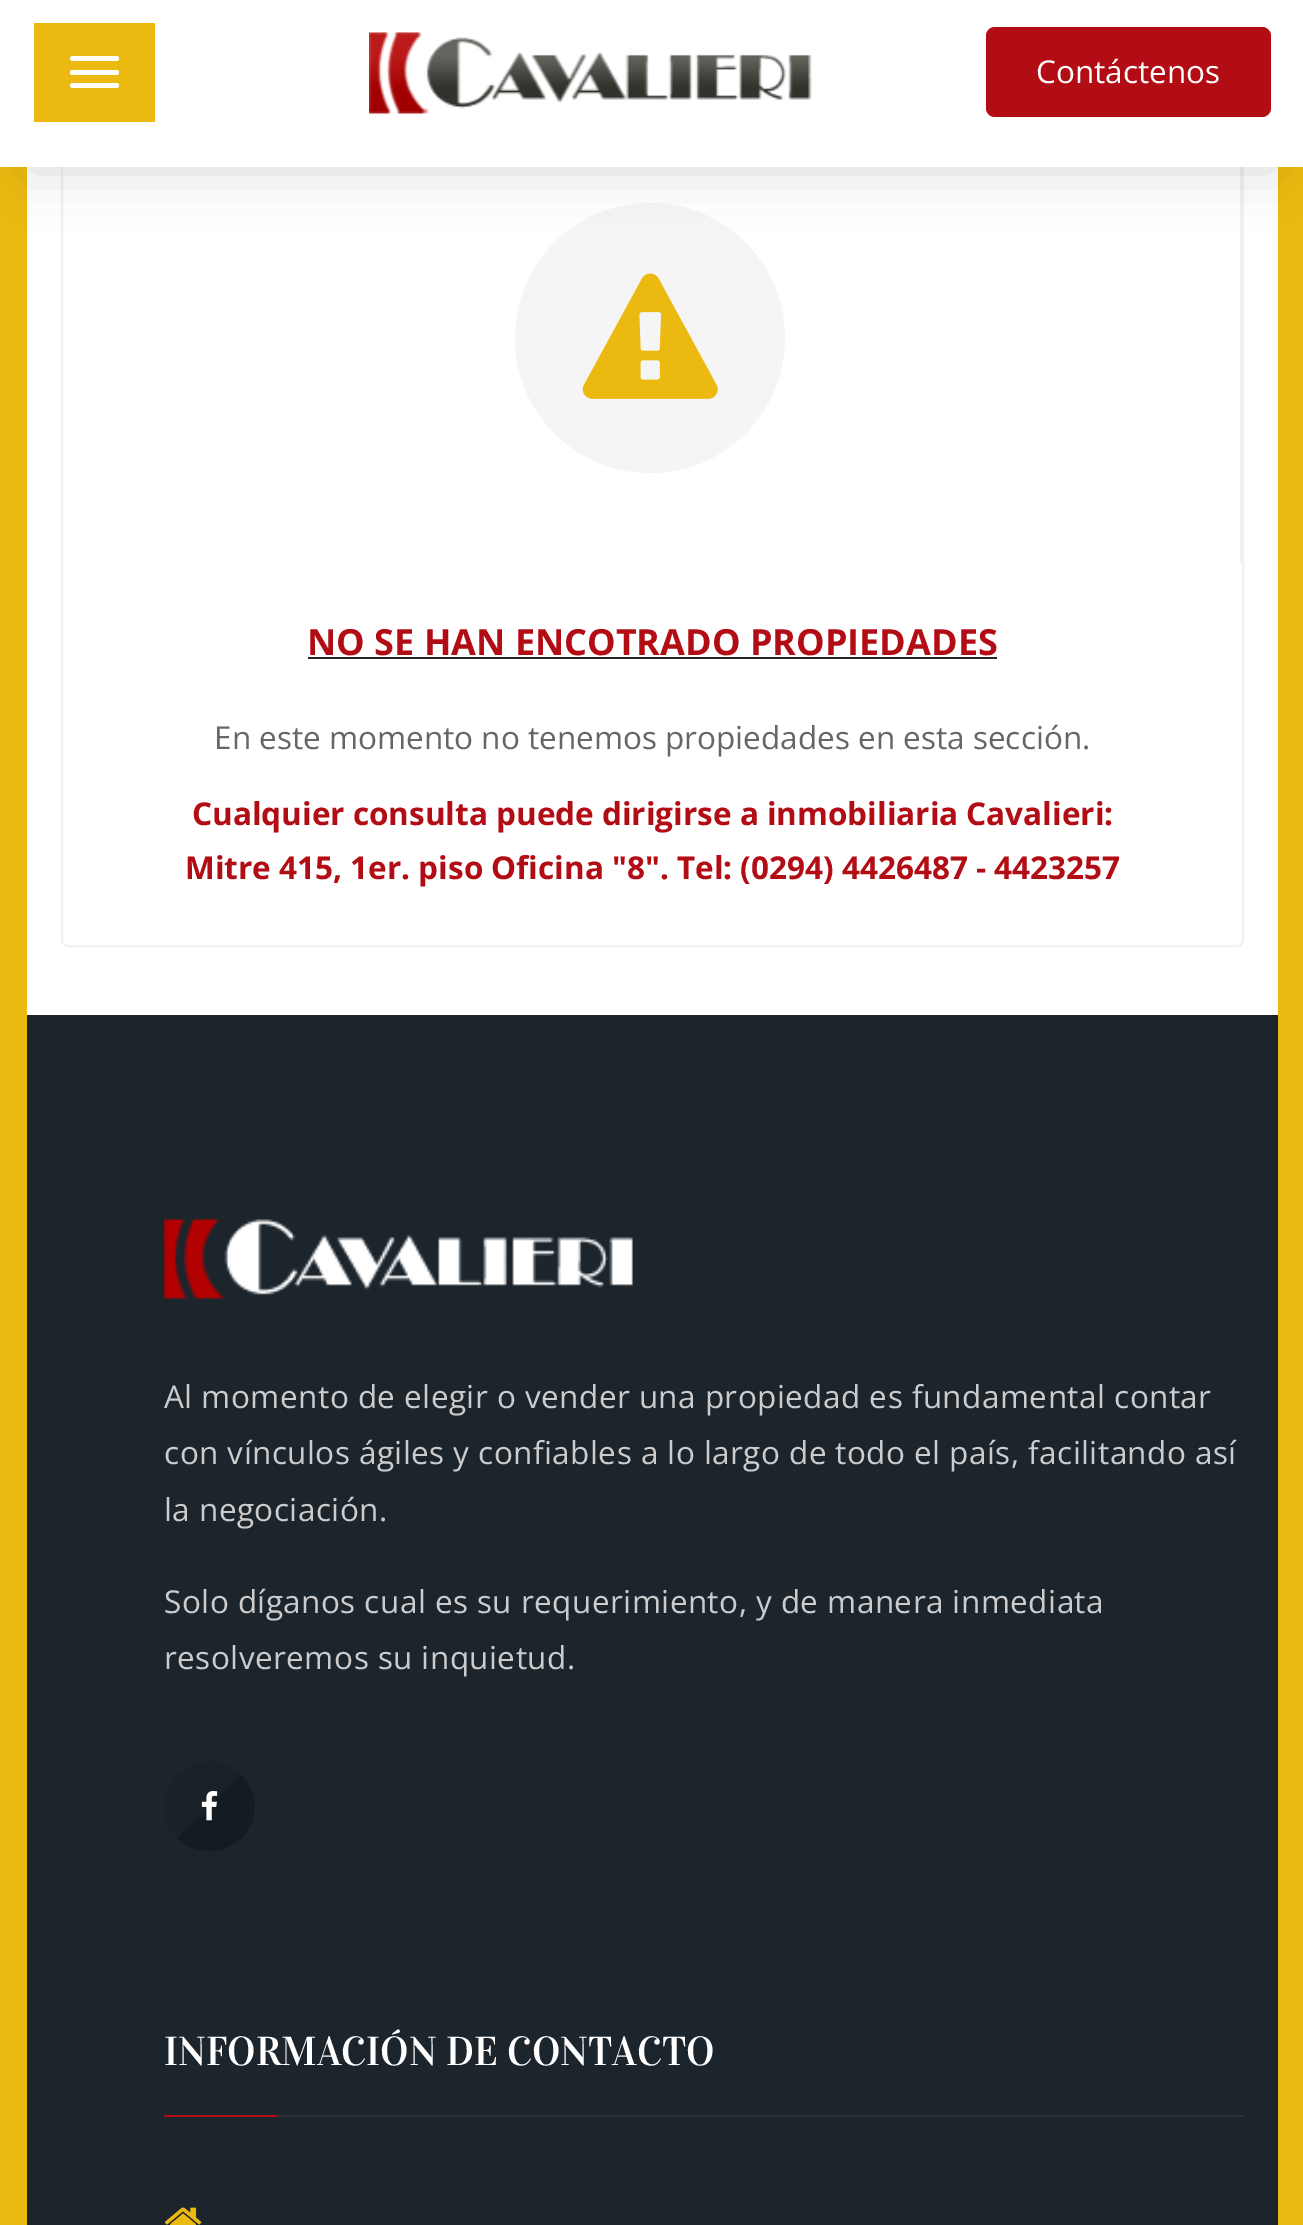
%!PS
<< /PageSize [1303 2225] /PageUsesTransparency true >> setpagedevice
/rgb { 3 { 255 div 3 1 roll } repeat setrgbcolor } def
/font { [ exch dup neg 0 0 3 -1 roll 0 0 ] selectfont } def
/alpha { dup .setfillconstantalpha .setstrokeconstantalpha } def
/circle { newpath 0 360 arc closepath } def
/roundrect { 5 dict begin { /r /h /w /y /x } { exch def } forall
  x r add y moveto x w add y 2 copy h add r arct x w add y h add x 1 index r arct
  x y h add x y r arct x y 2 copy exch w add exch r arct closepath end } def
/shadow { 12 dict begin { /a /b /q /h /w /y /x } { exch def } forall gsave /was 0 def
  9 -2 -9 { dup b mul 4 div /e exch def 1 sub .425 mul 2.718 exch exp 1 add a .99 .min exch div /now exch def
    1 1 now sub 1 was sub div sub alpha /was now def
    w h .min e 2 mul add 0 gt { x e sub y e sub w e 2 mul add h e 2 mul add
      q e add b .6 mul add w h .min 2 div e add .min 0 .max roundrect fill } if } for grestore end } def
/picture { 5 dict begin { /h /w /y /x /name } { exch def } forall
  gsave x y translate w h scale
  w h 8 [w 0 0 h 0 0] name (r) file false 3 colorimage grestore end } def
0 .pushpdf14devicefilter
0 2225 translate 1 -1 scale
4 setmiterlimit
236 185 16 rgb
0 0 1303 2225 rectfill
255 255 255 rgb
27 167 1251 848 rectfill
241 241 241 rgb
2 setlinewidth
62 111 1181 835 6 roundrect stroke
1240 167 2 396 rectfill
245 245 245 rgb
650 338 135 circle fill
0 0 0 rgb
27 56 1251 113 0 28 0.15 shadow
255 255 255 rgb
0 0 1303 167 rectfill
236 185 16 rgb
34 23 121 99 rectfill
255 255 255 rgb
70 56 49 5 2.5 roundrect fill
70 70 49 5 2.5 roundrect fill
70 83 49 5 2.5 roundrect fill
(img/1.rgb) 369 32 444 82 picture
178 12 20 rgb
986 27 285 90 9 roundrect fill
(img/2.rgb) 582 273 136 126 picture
37 37 37 rgb
308 657 689 2 rectfill
28 37 44 rgb
27 1015 1251 1210 rectfill
(img/3.rgb) 164 1219 469 80 picture
26 34 40 rgb
176 1776 moveto 195 1757 223 1757 241 1775 curveto 177 1838 lineto 160 1821 160 1793 176 1776 curveto closepath fill
20 28 34 rgb
241 1775 moveto 248 1782 252 1790 254 1799 curveto 261 1842 208 1869 177 1838 curveto closepath fill
(img/4.rgb) 201 1791 17 30 picture
44 50 54 rgb
277 2115 967 2 rectfill
178 12 20 rgb
164 2115 113 2 rectfill
(img/5.rgb) 164 2207 38 18 picture
/OpenSans-Regular 31.5 font
255 255 255 rgb
1036 83 moveto (Contáctenos) show
/OpenSans-Bold 36 font
178 12 20 rgb
307 655 moveto (NO SE HAN ENCOTRADO PROPIEDADES) show
/OpenSans-Regular 31.5 font
102 102 102 rgb
214 749 moveto (En este momento no tenemos propiedades en esta sección.) show
/OpenSans-Bold 31.5 font
178 12 20 rgb
192 825 moveto (Cualquier consulta puede dirigirse a inmobiliaria Cavalieri:) show
185 879 moveto (Mitre 415, 1er. piso Oficina "8". Tel: \(0294\) 4426487 - 4423257) show
/OpenSans-Regular 31.5 font
204 204 204 rgb
164 1408 moveto 0.45 0 (Al momento de elegir o vender una propiedad es fundamental contar) ashow
164 1464 moveto 0.45 0 (con vínculos ágiles y confiables a lo largo de todo el país, facilitando así) ashow
164 1521 moveto 0.45 0 (la negociación.) ashow
164 1613 moveto 0.45 0 (Solo díganos cual es su requerimiento, y de manera inmediata) ashow
164 1669 moveto 0.45 0 (resolveremos su inquietud.) ashow
/Vidaloka-Regular 40.5 font
255 255 255 rgb
164 2065 moveto (INFORMACIÓN DE CONTACTO) show
.poppdf14devicefilter showpage
